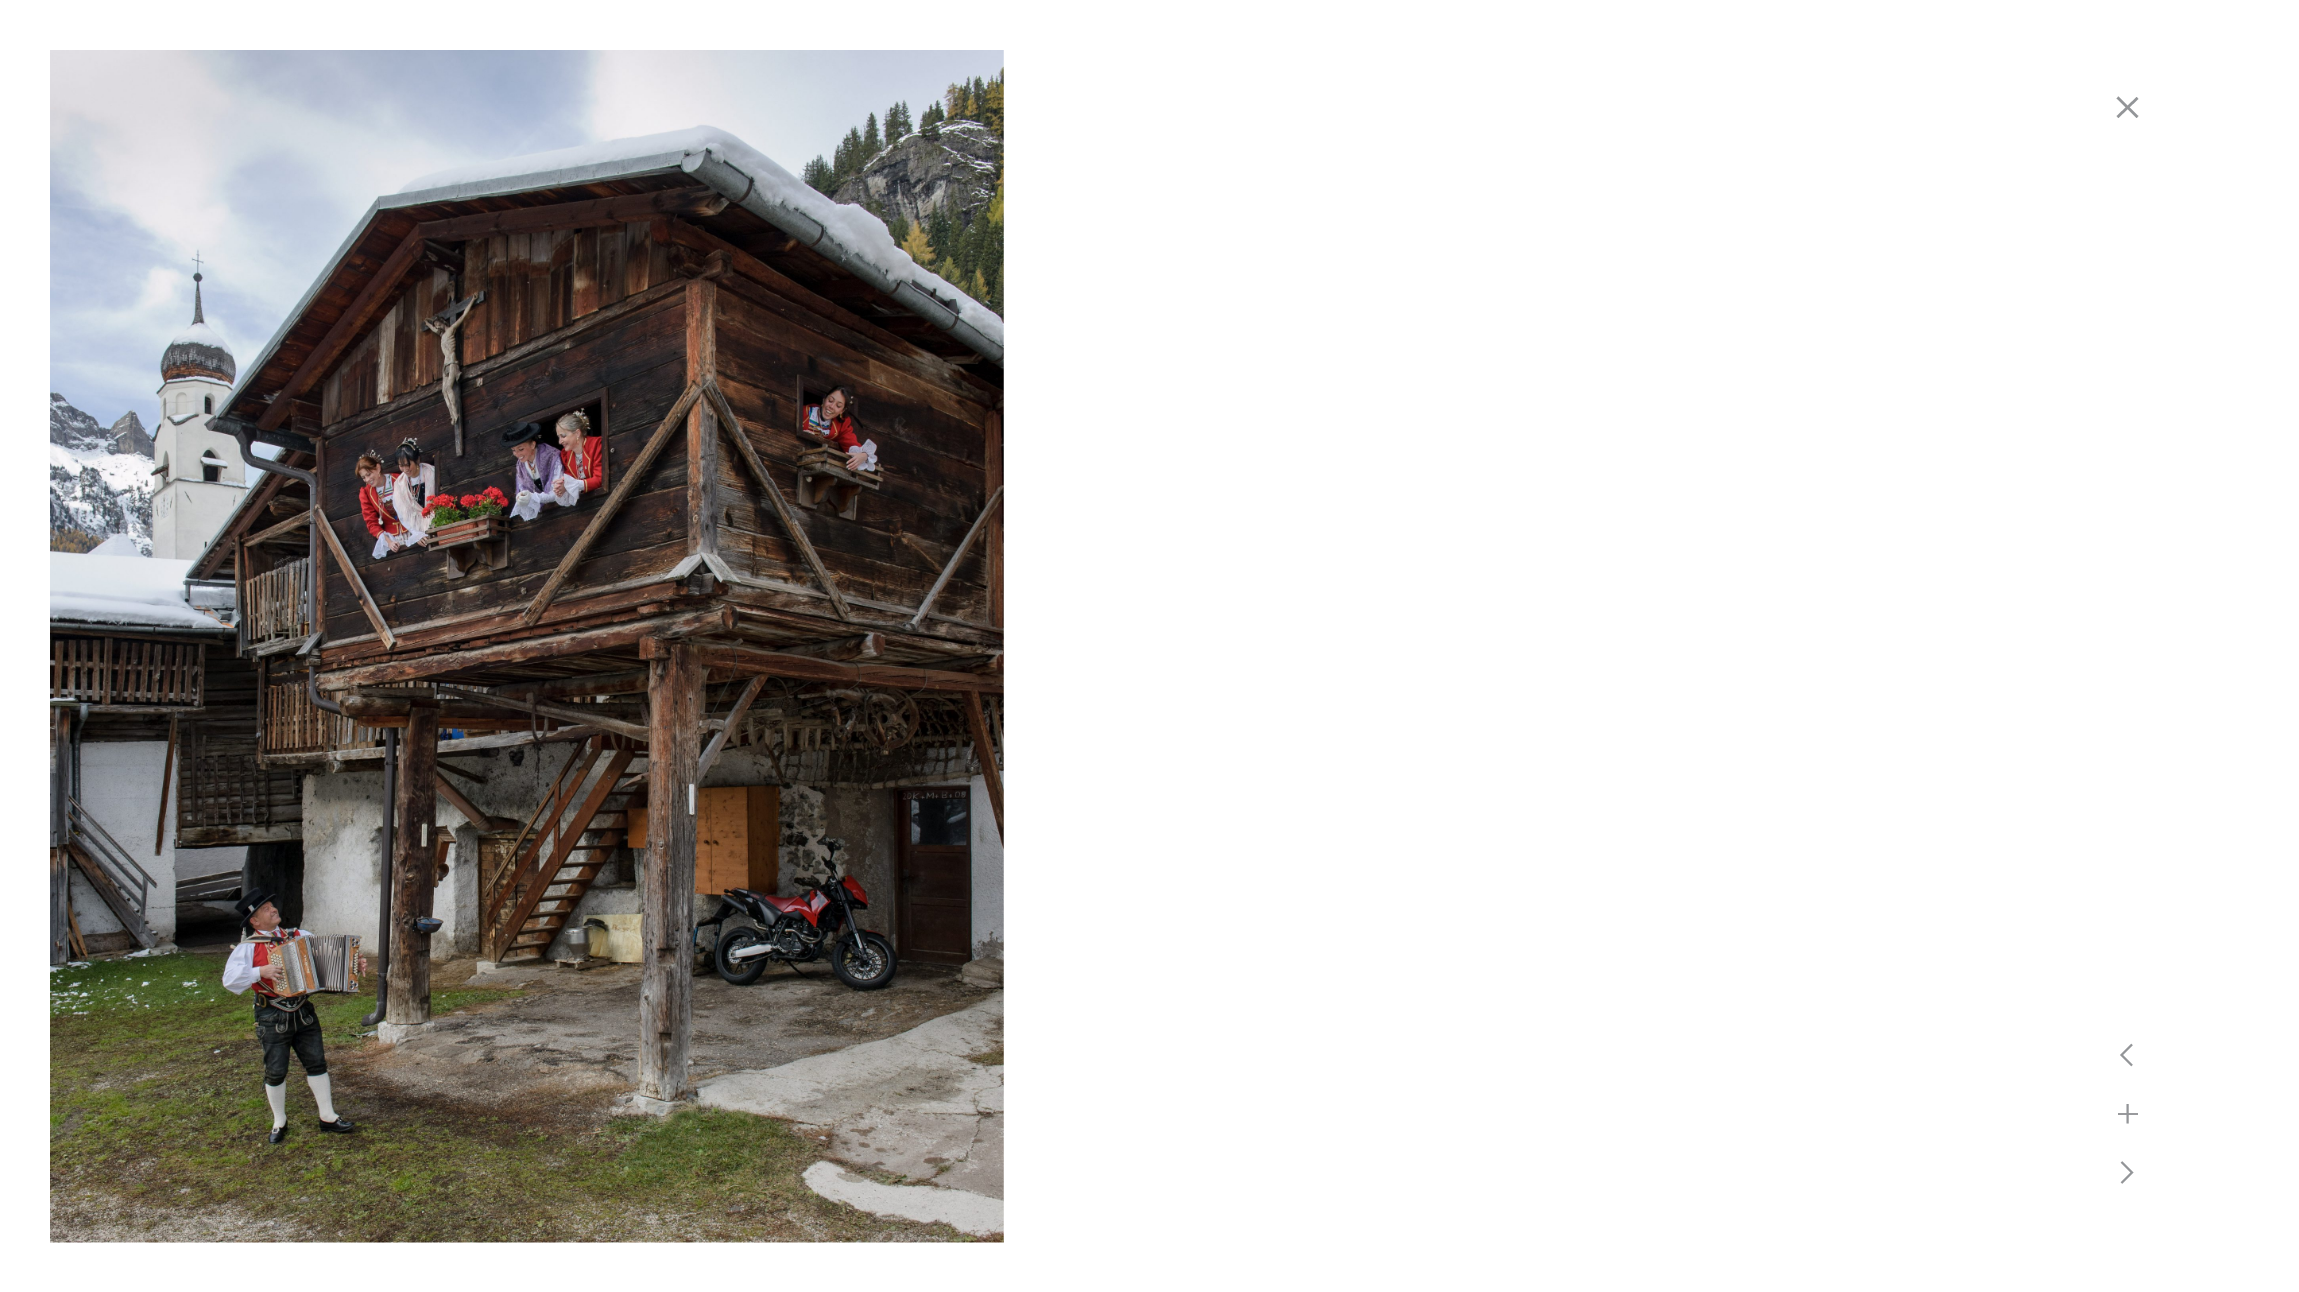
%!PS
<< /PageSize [2299 1292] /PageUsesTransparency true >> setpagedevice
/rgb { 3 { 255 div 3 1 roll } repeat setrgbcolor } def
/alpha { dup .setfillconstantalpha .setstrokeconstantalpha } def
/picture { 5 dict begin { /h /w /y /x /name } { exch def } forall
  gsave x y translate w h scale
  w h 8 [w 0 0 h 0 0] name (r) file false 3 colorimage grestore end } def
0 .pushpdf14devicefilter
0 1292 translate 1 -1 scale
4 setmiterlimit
255 255 255 rgb
0 0 2299 1292 rectfill
(img/1.rgb) 50 50 954 1193 picture
147 149 152 rgb
2.5 setlinewidth
2117.5 97.5 moveto 2137.5 117 lineto 2117.5 117 moveto 2137.5 98 lineto stroke
1.9 setlinewidth
2132 1065.5 moveto 2121.5 1055 lineto 2132 1044.5 lineto stroke
2127.5 1123.5 moveto 2127.5 1104 lineto stroke
0.95 alpha
2118 1113 20 2 rectfill
1 alpha
2121.5 1183 moveto 2132 1172.5 lineto 2121.5 1162 lineto stroke
.poppdf14devicefilter showpage
